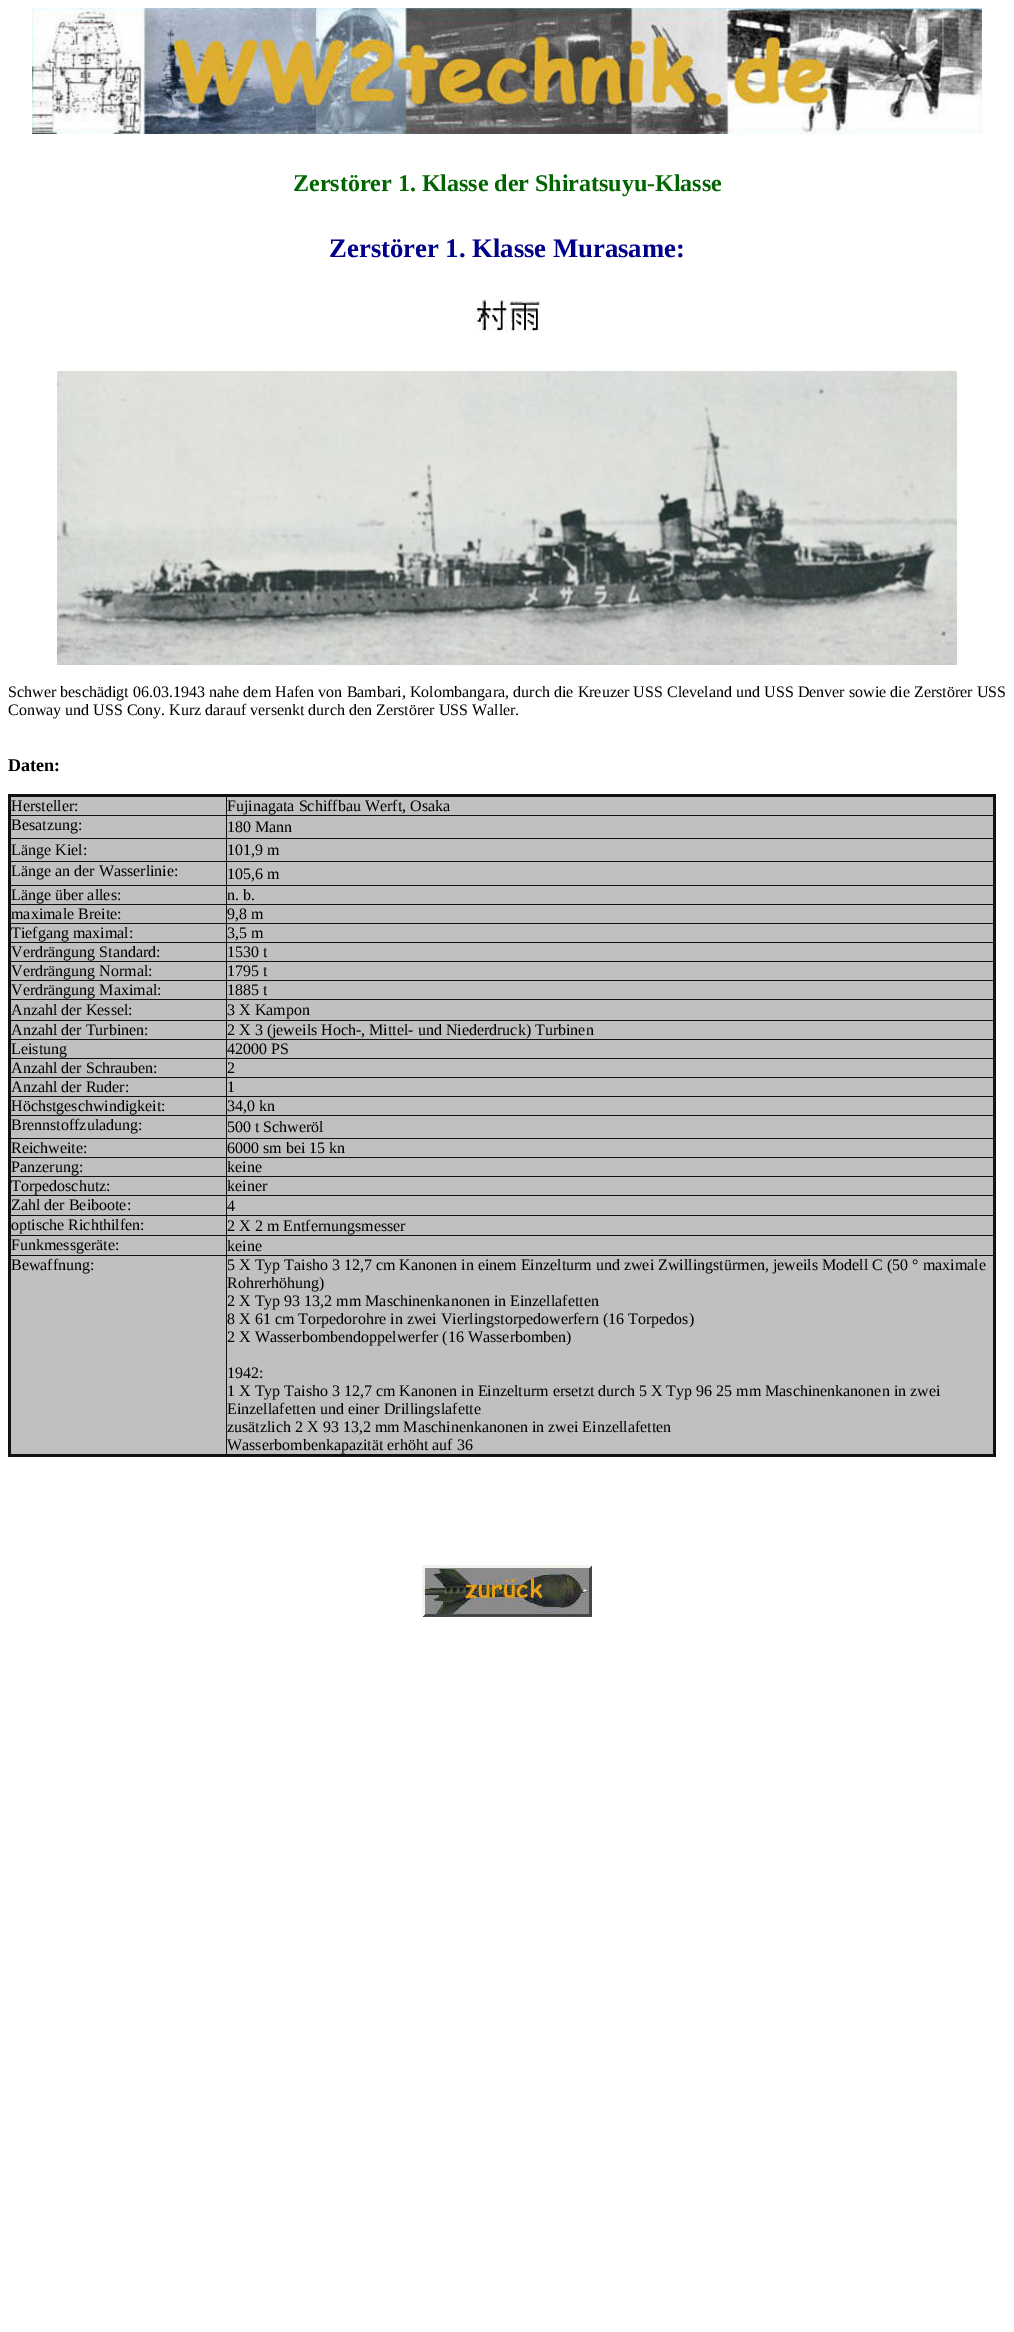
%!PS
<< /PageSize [1014 2332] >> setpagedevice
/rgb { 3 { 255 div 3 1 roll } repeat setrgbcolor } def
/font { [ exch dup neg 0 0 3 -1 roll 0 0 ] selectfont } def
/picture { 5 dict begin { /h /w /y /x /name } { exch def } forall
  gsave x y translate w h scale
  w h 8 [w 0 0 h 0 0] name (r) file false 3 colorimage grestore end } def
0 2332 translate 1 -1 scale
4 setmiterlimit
255 255 255 rgb
0 0 1014 2332 rectfill
(img/1.rgb) 32 8 950 126 picture
(img/2.rgb) 474 300 67 32 picture
(img/3.rgb) 57 371 900 294 picture
[
  [11 797 982 657 192 192 192]
  [226 815 769 1 17 17 17]
  [226 838 769 1 17 17 17]
  [226 861 769 1 17 17 17]
  [226 885 769 1 17 17 17]
  [226 904 769 1 17 17 17]
  [226 923 769 1 17 17 17]
  [226 942 769 1 17 17 17]
  [226 961 769 1 17 17 17]
  [226 980 769 1 17 17 17]
  [226 999 769 1 17 17 17]
  [226 1020 769 1 17 17 17]
  [226 1039 769 1 17 17 17]
  [226 1058 769 1 17 17 17]
  [226 1077 769 1 17 17 17]
  [226 1096 769 1 17 17 17]
  [226 1115 769 1 17 17 17]
  [226 1138 769 1 17 17 17]
  [226 1157 769 1 17 17 17]
  [226 1176 769 1 17 17 17]
  [226 1195 769 1 17 17 17]
  [226 1215 769 1 17 17 17]
  [226 1235 769 1 17 17 17]
  [226 1255 769 1 17 17 17]
  [226 1255 1 201 17 17 17]
  [9 1255 218 1 17 17 17]
  [226 1235 1 21 17 17 17]
  [9 1235 218 1 17 17 17]
  [226 1215 1 21 17 17 17]
  [9 1215 218 1 17 17 17]
  [226 1195 1 21 17 17 17]
  [9 1195 218 1 17 17 17]
  [226 1176 1 20 17 17 17]
  [9 1176 218 1 17 17 17]
  [226 1157 1 20 17 17 17]
  [9 1157 218 1 17 17 17]
  [226 1138 1 20 17 17 17]
  [9 1138 218 1 17 17 17]
  [226 1115 1 24 17 17 17]
  [9 1115 218 1 17 17 17]
  [226 1096 1 20 17 17 17]
  [9 1096 218 1 17 17 17]
  [226 1077 1 20 17 17 17]
  [9 1077 218 1 17 17 17]
  [226 1058 1 20 17 17 17]
  [9 1058 218 1 17 17 17]
  [226 1039 1 20 17 17 17]
  [9 1039 218 1 17 17 17]
  [226 1020 1 20 17 17 17]
  [9 1020 218 1 17 17 17]
  [226 999 1 22 17 17 17]
  [9 999 218 1 17 17 17]
  [226 980 1 20 17 17 17]
  [9 980 218 1 17 17 17]
  [226 961 1 20 17 17 17]
  [9 961 218 1 17 17 17]
  [226 942 1 20 17 17 17]
  [9 942 218 1 17 17 17]
  [226 923 1 20 17 17 17]
  [9 923 218 1 17 17 17]
  [226 904 1 20 17 17 17]
  [9 904 218 1 17 17 17]
  [226 885 1 20 17 17 17]
  [9 885 218 1 17 17 17]
  [226 861 1 25 17 17 17]
  [9 861 218 1 17 17 17]
  [226 838 1 24 17 17 17]
  [9 838 218 1 17 17 17]
  [226 815 1 24 17 17 17]
  [9 815 218 1 17 17 17]
  [226 795 1 21 17 17 17]
  [8 794 988 3 17 17 17]
  [993 794 3 663 17 17 17]
  [8 1454 988 3 17 17 17]
  [8 794 3 663 17 17 17]
] { aload pop rgb rectfill } forall
(img/4.rgb) 422 1565 170 52 picture
/LiberationSerif-Bold 24 font
0 100 0 rgb
293 191 moveto (Zerstörer 1. Klasse der Shiratsuyu-Klasse) show
/LiberationSerif-Bold 26.7 font
0 0 139 rgb
329 257 moveto (Zerstörer 1. Klasse Murasame:) show
/LiberationSerif-Regular 16 font
0 0 0 rgb
8 697 moveto 0.2 0 32 (Schwer beschädigt 06.03.1943 nahe dem Hafen von Bambari, Kolombangara, durch die Kreuzer USS Cleveland und USS Denver sowie die) widthshow
914 697 moveto (Zerstörer USS) show
8 715 moveto (Conway und USS Cony. Kurz darauf versenkt durch den Zerstörer USS Waller.) show
/LiberationSerif-Bold 18 font
8 771 moveto (Daten:) show
/LiberationSerif-Regular 16 font
[
  [(Hersteller:) 11 811]
  [(Fujinagata Schiffbau Werft, Osaka) 227 811]
  [(Besatzung:) 11 830]
  [(180 Mann) 227 832]
  [(Länge Kiel:) 11 855]
  [(101,9 m) 227 855]
  [(Länge an der Wasserlinie:) 11 876]
  [(105,6 m) 227 879]
  [(Länge über alles:) 11 900]
  [(n. b.) 227 900]
  [(maximale Breite:) 11 919]
  [(9,8 m) 227 919]
  [(Tiefgang maximal:) 11 938]
  [(3,5 m) 227 938]
  [(Verdrängung Standard:) 11 957]
  [(1530 t) 227 957]
  [(Verdrängung Normal:) 11 976]
  [(1795 t) 227 976]
  [(Verdrängung Maximal:) 11 995]
  [(1885 t) 227 995]
  [(Anzahl der Kessel:) 11 1015]
  [(3 X Kampon) 227 1015]
  [(Anzahl der Turbinen:) 11 1035]
  [(2 X 3 \(jeweils Hoch-, Mittel- und Niederdruck\) Turbinen) 227 1035]
  [(Leistung) 11 1054]
  [(42000 PS) 227 1054]
  [(Anzahl der Schrauben:) 11 1073]
  [(2) 227 1073]
  [(Anzahl der Ruder:) 11 1092]
  [(1) 227 1092]
  [(Höchstgeschwindigkeit:) 11 1111]
  [(34,0 kn) 227 1111]
  [(Brennstoffzuladung:) 11 1130]
  [(500 t Schweröl) 227 1132]
  [(Reichweite:) 11 1153]
  [(6000 sm bei 15 kn) 227 1153]
  [(Panzerung:) 11 1172]
  [(keine) 227 1172]
  [(Torpedoschutz:) 11 1191]
  [(keiner) 227 1191]
  [(Zahl der Beiboote:) 11 1210]
  [(4) 227 1211]
  [(optische Richthilfen:) 11 1230]
  [(2 X 2 m Entfernungsmesser) 227 1231]
  [(Funkmessgeräte:) 11 1250]
  [(keine) 227 1251]
  [(Bewaffnung:) 11 1270]
  [(5 X Typ Taisho 3 12,7 cm Kanonen in einem Einzelturm und zwei Zwillingstürmen, jeweils Modell C \(50 ° maximale) 227 1270]
  [(Rohrerhöhung\)) 227 1288]
  [(2 X Typ 93 13,2 mm Maschinenkanonen in Einzellafetten) 227 1306]
  [(8 X 61 cm Torpedorohre in zwei Vierlingstorpedowerfern \(16 Torpedos\)) 227 1324]
  [(2 X Wasserbombendoppelwerfer \(16 Wasserbomben\)) 227 1342]
  [(1942:) 227 1378]
  [(1 X Typ Taisho 3 12,7 cm Kanonen in Einzelturm ersetzt durch 5 X Typ 96 25 mm Maschinenkanonen in zwei) 227 1396]
  [(Einzellafetten und einer Drillingslafette) 227 1414]
  [(zusätzlich 2 X 93 13,2 mm Maschinenkanonen in zwei Einzellafetten) 227 1432]
  [(Wasserbombenkapazität erhöht auf 36) 227 1450]
] { aload pop moveto show } forall
showpage
